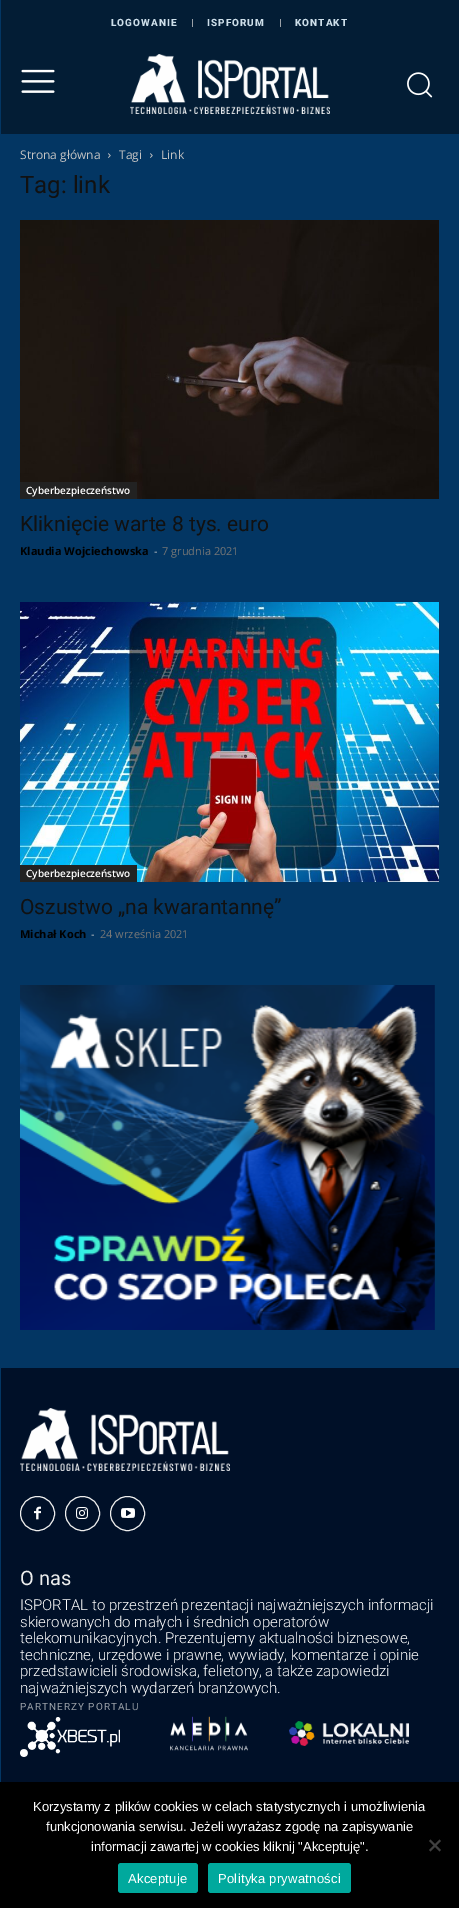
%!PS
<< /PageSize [459 1908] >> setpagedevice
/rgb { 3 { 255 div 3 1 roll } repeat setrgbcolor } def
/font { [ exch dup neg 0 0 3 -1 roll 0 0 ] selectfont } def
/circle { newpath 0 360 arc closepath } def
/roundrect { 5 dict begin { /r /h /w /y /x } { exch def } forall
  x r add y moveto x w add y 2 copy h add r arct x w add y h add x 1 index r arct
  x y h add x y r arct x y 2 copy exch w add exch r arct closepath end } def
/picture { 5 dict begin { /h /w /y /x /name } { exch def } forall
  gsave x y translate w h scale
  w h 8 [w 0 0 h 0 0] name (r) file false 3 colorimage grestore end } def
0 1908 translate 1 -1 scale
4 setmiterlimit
3 54 99 rgb
0 0 459 1908 rectfill
[
  [1 0 458 134 3 29 53]
  [192 19 1 8 155 161 168]
  [280 19 1 8 155 161 168]
] { aload pop rgb rectfill } forall
(img/1.rgb) 21 69 34 24 picture
(img/2.rgb) 130 54 200 60 picture
(img/3.rgb) 407 72 26 26 picture
(img/4.rgb) 108 153 3 5 picture
(img/4.rgb) 150 153 3 5 picture
(img/5.rgb) 20 220 419 279 picture
34 34 34 rgb
20 482 117 17 rectfill
(img/6.rgb) 20 602 419 280 picture
20 865 117 17 rectfill
(img/7.rgb) 20 985 415 345 picture
0 16 40 rgb
1 1368 458 414 rectfill
(img/8.rgb) 20 1408 210 63 picture
237 237 237 rgb
37.5 1513.5 17 circle stroke
(img/9.rgb) 34 1506 7 14 picture
82.5 1513.5 17 circle stroke
(img/10.rgb) 76 1507 12 12 picture
127.5 1513.5 17 circle stroke
(img/11.rgb) 121 1508 14 10 picture
(img/12.rgb) 20 1717 100 40 picture
(img/13.rgb) 170 1716 78 35 picture
(img/14.rgb) 289 1721 120 25 picture
0 0 0 rgb
0 1782 459 126 rectfill
64 64 64 rgb
439.5 1839.5 moveto 441 1841 lineto 430.5 1851.5 lineto 429 1850 lineto closepath fill
429 1841 moveto 430.5 1839.5 lineto 441 1850 lineto 439.5 1851.5 lineto closepath fill
0 169 157 rgb
118 1863 80 30 3 roundrect fill
208 1863 143 30 3 roundrect fill
/Roboto-ExtraBold 10 font
206 223 234 rgb
111 26 moveto 1 0 (LOGOWANIE) ashow
207 26 moveto 1 0 (ISPFORUM) ashow
295 26 moveto 1 0 (KONTAKT) ashow
/OpenSans-Regular 12 font
195 195 195 rgb
[
  [(Strona główna) 20 159]
  [(Tagi) 119 159]
  [(Link) 161 159]
] { aload pop moveto show } forall
/Roboto-Regular 24 font
17 17 17 rgb
20 193 moveto (Tag: link) show
/OpenSans-SemiBold 10 font
255 255 255 rgb
26 494 moveto (Cyberbezpieczeństwo) show
/Roboto-Regular 21 font
17 17 17 rgb
20 531 moveto (Kliknięcie warte 8 tys. euro) show
/OpenSans-Bold 11 font
0 0 0 rgb
20 555 moveto (Klaudia Wojciechowska) show
/OpenSans-Regular 11 font
204 204 204 rgb
154 555 moveto (-) show
118 118 118 rgb
162 555 moveto (7 grudnia 2021) show
/OpenSans-SemiBold 10 font
255 255 255 rgb
26 877 moveto (Cyberbezpieczeństwo) show
/Roboto-Regular 21 font
17 17 17 rgb
20 914 moveto (Oszustwo „na kwarantannę”) show
/OpenSans-Bold 11 font
0 0 0 rgb
20 938 moveto (Michał Koch) show
/OpenSans-Regular 11 font
204 204 204 rgb
91 938 moveto (-) show
118 118 118 rgb
100 938 moveto (24 września 2021) show
/Roboto-Regular 20 font
237 238 238 rgb
20 1585 moveto (O nas) show
/Roboto-Light 15 font
255 255 255 rgb
[
  [(ISPORTAL to przestrzeń prezentacji najważniejszych informacji) 20 1610]
  [(skierowanych do małych i średnich operatorów) 20 1627]
  [(telekomunikacyjnych. Prezentujemy aktualności biznesowe,) 20 1643]
  [(techniczne, urzędowe i prawne, wywiady, komentarze i opinie) 20 1660]
  [(przedstawicieli środowiska, felietony, a także zapowiedzi) 20 1676]
  [(najważniejszych wydarzeń branżowych.) 20 1693]
] { aload pop moveto show } forall
/Roboto-Regular 10 font
155 161 168 rgb
20 1710 moveto 1 0 (PARTNERZY PORTALU) ashow
/LiberationSans-Regular 13 font
255 255 255 rgb
[
  [(Korzystamy z plików cookies w celach statystycznych i umożliwienia) 33 1811]
  [(funkcjonowania serwisu. Jeżeli wyrażasz zgodę na zapisywanie) 46 1831]
  [(informacji zawartej w cookies kliknij "Akceptuję".) 91 1851]
] { aload pop moveto show } forall
128 1883 moveto 0.25 0 (Akceptuje) ashow
218 1883 moveto 0.25 0 (Polityka prywatności) ashow
showpage
